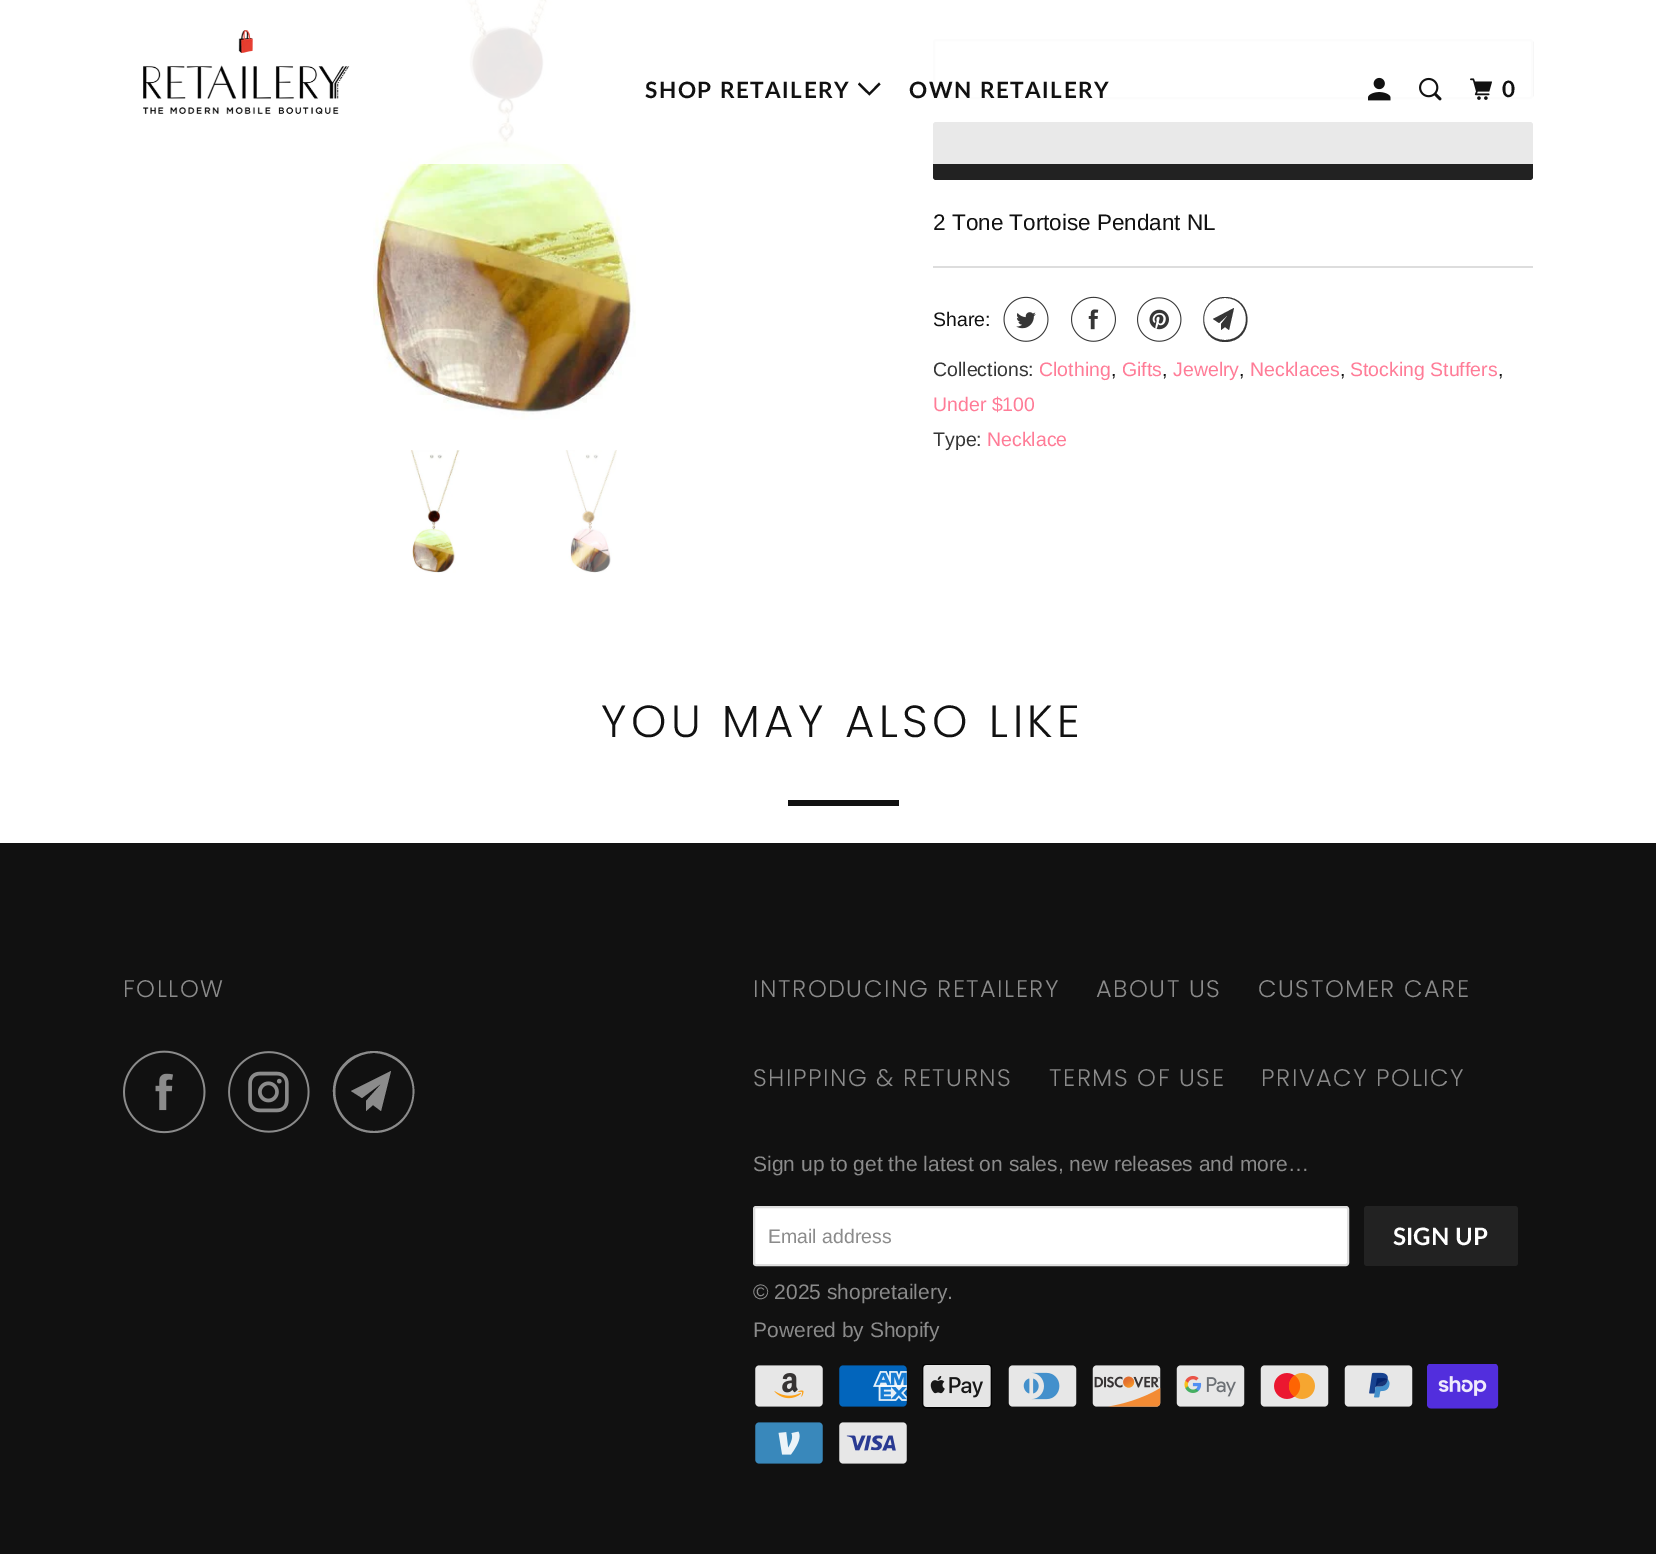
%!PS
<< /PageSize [1656 1554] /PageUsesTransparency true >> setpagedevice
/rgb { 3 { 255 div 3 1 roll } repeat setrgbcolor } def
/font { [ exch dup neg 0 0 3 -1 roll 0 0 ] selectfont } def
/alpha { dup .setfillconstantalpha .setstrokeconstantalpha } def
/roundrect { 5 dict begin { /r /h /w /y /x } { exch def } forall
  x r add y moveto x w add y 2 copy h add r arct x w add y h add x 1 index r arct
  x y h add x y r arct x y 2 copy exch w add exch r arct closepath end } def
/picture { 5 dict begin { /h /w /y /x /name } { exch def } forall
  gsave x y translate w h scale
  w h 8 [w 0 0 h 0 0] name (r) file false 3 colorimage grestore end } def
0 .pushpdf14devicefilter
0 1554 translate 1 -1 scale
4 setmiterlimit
17 17 17 rgb
0 0 1656 1554 rectfill
255 255 255 rgb
0 0 1656 843 rectfill
(img/5.rgb) 373 0 263 420 picture
223 223 223 rgb
2 setlinewidth
934 40 598 58 2 roundrect stroke
34 34 34 rgb
933 122 600 58 3 roundrect fill
0.9 alpha
255 255 255 rgb
419 0 1114 164 rectfill
1 alpha
(img/1.rgb) 143 30 207 84 picture
17 17 17 rgb
863.5 90 moveto 858 84.5 lineto 859.5 82.5 lineto 869.5 92.5 lineto 879 82.5 lineto 880.5 84.5 lineto 869.5 95.5 lineto closepath fill
(img/2.rgb) 1368 77 23 24 picture
(img/3.rgb) 1419 77 23 24 picture
(img/4.rgb) 1470 78 22 22 picture
(img/6.rgb) 410 450 50 123 picture
(img/7.rgb) 565 450 52 123 picture
221 221 221 rgb
933 266 600 2 rectfill
(img/8.rgb) 1003 296 46 46 picture
(img/9.rgb) 1071 296 45 46 picture
(img/10.rgb) 1137 297 45 45 picture
54 54 54 rgb
1229 330 moveto 1225 327 lineto 1221 330 lineto 1221 324 lineto 1229 314 lineto 1219 323 lineto 1213 319 lineto 1234 308 lineto closepath 1225 298 moveto 1197 298 1197 340 1225 340 curveto 1253 340 1253 298 1225 298 curveto closepath 1225 342 moveto 1196 342 1196 297 1225 297 curveto 1255 297 1255 342 1225 342 curveto closepath fill
17 17 17 rgb
788 800 111 6 rectfill
(img/11.rgb) 123 1050 83 84 picture
(img/12.rgb) 228 1051 82 82 picture
139 139 139 rgb
381 1111 moveto 373 1105 lineto 366 1111 lineto 366 1101 lineto 382 1083 lineto 362 1098 lineto 351 1091 lineto 391 1071 lineto closepath 374 1053 moveto 365 1053 357 1056 351 1061 curveto 321 1083 337 1131 374 1131 curveto 411 1131 427 1083 397 1061 curveto 390 1056 382 1053 374 1053 curveto closepath 374 1133 moveto 335 1133 318 1083 349 1059 curveto 356 1054 365 1051 374 1051 curveto 383 1051 391 1054 398 1059 curveto 429 1082 413 1133 374 1133 curveto closepath fill
255 255 255 rgb
754 1207 594 58 2 roundrect gsave fill grestore
223 223 223 rgb
stroke
34 34 34 rgb
1364 1206 154 60 3 roundrect fill
(img/13.rgb) 755 1365 68 42 picture
(img/14.rgb) 839 1365 68 42 picture
(img/15.rgb) 922 1364 70 45 picture
(img/16.rgb) 1008 1365 69 42 picture
(img/17.rgb) 1092 1365 69 42 picture
(img/18.rgb) 1176 1365 69 42 picture
(img/19.rgb) 1260 1365 69 42 picture
(img/20.rgb) 1344 1365 69 42 picture
(img/21.rgb) 1427 1364 72 45 picture
(img/22.rgb) 755 1422 68 42 picture
(img/23.rgb) 839 1422 68 42 picture
/Lato-Bold 22.5 font
17 17 17 rgb
645 98 moveto 1.5 0 (SHOP RETAILERY) ashow
909 98 moveto 1.5 0 (OWN RETAILERY) ashow
1502 97 moveto 1.5 0 (0) ashow
/LiberationSans-Regular 22.5 font
933 230 moveto (2 Tone Tortoise Pendant NL) show
/LiberationSans-Regular 19.5 font
933 326 moveto (Share:) show
54 54 54 rgb
933 376 moveto (Collections:) show
255 124 151 rgb
1039 376 moveto (Clothing) show
17 17 17 rgb
1111 376 moveto (,) show
255 124 151 rgb
1122 376 moveto (Gifts) show
17 17 17 rgb
1162 376 moveto (,) show
255 124 151 rgb
1173 376 moveto (Jewelry) show
17 17 17 rgb
1239 376 moveto (,) show
255 124 151 rgb
1250 376 moveto (Necklaces) show
17 17 17 rgb
1340 376 moveto (,) show
255 124 151 rgb
1350 376 moveto (Stocking Stuffers) show
17 17 17 rgb
1498 376 moveto (,) show
255 124 151 rgb
933 411 moveto (Under $100) show
54 54 54 rgb
933 446 moveto (Type:) show
255 124 151 rgb
987 446 moveto (Necklace) show
/Poppins-Light 45 font
17 17 17 rgb
601 737 moveto 4.5 0 (YOU MAY ALSO LIKE) ashow
/Poppins-Light 24 font
139 139 139 rgb
123 997 moveto 1.5 0 (FOLLOW) ashow
753 997 moveto 1.5 0 (INTRODUCING RETAILERY) ashow
1096 997 moveto 1.5 0 (ABOUT US) ashow
1258 997 moveto 1.5 0 (CUSTOMER CARE) ashow
753 1086 moveto 1.5 0 (SHIPPING & RETURNS) ashow
1049 1086 moveto 1.5 0 (TERMS OF USE) ashow
1261 1086 moveto 1.5 0 (PRIVACY POLICY) ashow
/LiberationSans-Regular 21 font
753 1171 moveto (Sign up to get the latest on sales, new releases and more…) show
/LiberationSans-Regular 19.5 font
768 1243 moveto (Email address) show
/Lato-Bold 24 font
255 255 255 rgb
1393 1245 moveto (SIGN UP) show
/LiberationSans-Regular 21 font
139 139 139 rgb
753 1299 moveto (© 2025 shopretailery.) show
753 1337 moveto (Powered by Shopify) show
.poppdf14devicefilter showpage
